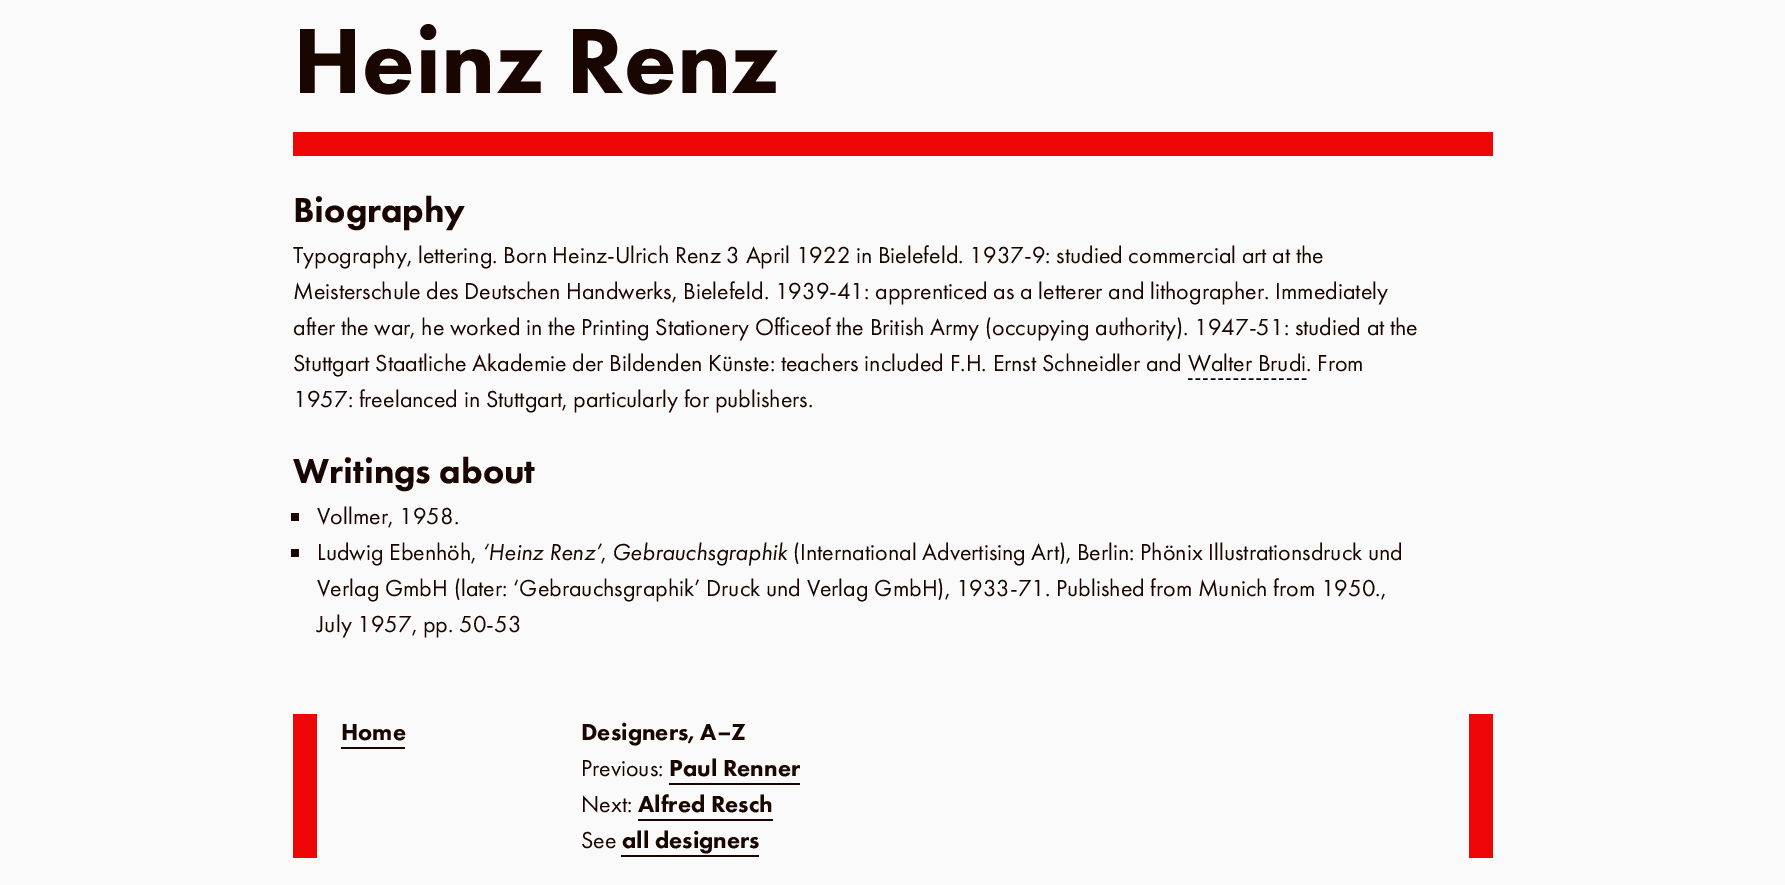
%!PS
<< /PageSize [1785 885] >> setpagedevice
/rgb { 3 { 255 div 3 1 roll } repeat setrgbcolor } def
/font { [ exch dup neg 0 0 3 -1 roll 0 0 ] selectfont } def
0 885 translate 1 -1 scale
4 setmiterlimit
250 250 250 rgb
0 0 1785 885 rectfill
239 6 6 rgb
293 132 1200 24 rectfill
0 0 0 rgb
1.5 setlinewidth
[4.5 3.1] 0 setdash
1188 379 moveto 1306.5 379 lineto stroke
[
  [291 513 8 8 26 6 0]
  [291 549 8 8 26 6 0]
  [1469 714 24 144 239 6 6]
  [293 714 24 144 239 6 6]
  [341 747 64 2 26 6 0]
  [669 783 131 2 26 6 0]
  [638 819 135 2 26 6 0]
  [621 855 138 2 26 6 0]
] { aload pop rgb rectfill } forall
/FuturaPT-Black 96 font
293 93 moveto (Heinz Renz) show
/FuturaPT-Black 36 font
293 222 moveto (Biography) show
/FuturaPT-Regular 24 font
[
  [(Typography, lettering. Born Heinz-Ulrich Renz 3 April 1922 in Bielefeld. 1937-9: studied commercial art at the) 293 263]
  [(Meisterschule des Deutschen Handwerks, Bielefeld. 1939-41: apprenticed as a letterer and lithographer. Immediately) 293 299]
  [(after the war, he worked in the Printing Stationery Officeof the British Army \(occupying authority\). 1947-51: studied at the) 293 335]
  [(Stuttgart Staatliche Akademie der Bildenden Künste: teachers included F.H. Ernst Schneidler and Walter Brudi. From) 293 371]
  [(1957: freelanced in Stuttgart, particularly for publishers.) 293 407]
] { aload pop moveto show } forall
/FuturaPT-Black 36 font
293 483 moveto (Writings about) show
/FuturaPT-Regular 24 font
317 524 moveto (Vollmer, 1958.) show
317 560 moveto (Ludwig Ebenhöh,) show
/FuturaPT-Italic 24 font
482 560 moveto (‘Heinz Renz’) show
612 560 moveto (Gebrauchsgraphik) show
/FuturaPT-Regular 24 font
[
  [(\(International Advertising Art\), Berlin: Phönix Illustrationsdruck und) 793 560]
  [(,) 601 560]
  [(Verlag GmbH \(later: ‘Gebrauchsgraphik’ Druck und Verlag GmbH\), 1933-71. Published from Munich from 1950.,) 317 596]
  [(July 1957, pp. 50-53) 317 632]
] { aload pop moveto show } forall
/FuturaPT-Black 24 font
341 740 moveto (Home) show
581 740 moveto (Designers, A–Z) show
/FuturaPT-Regular 24 font
581 776 moveto (Previous:) show
/FuturaPT-Black 24 font
669 776 moveto (Paul Renner) show
/FuturaPT-Regular 24 font
581 812 moveto (Next:) show
/FuturaPT-Black 24 font
638 812 moveto (Alfred Resch) show
/FuturaPT-Regular 24 font
581 848 moveto (See) show
/FuturaPT-Black 24 font
622 848 moveto (all designers) show
showpage
